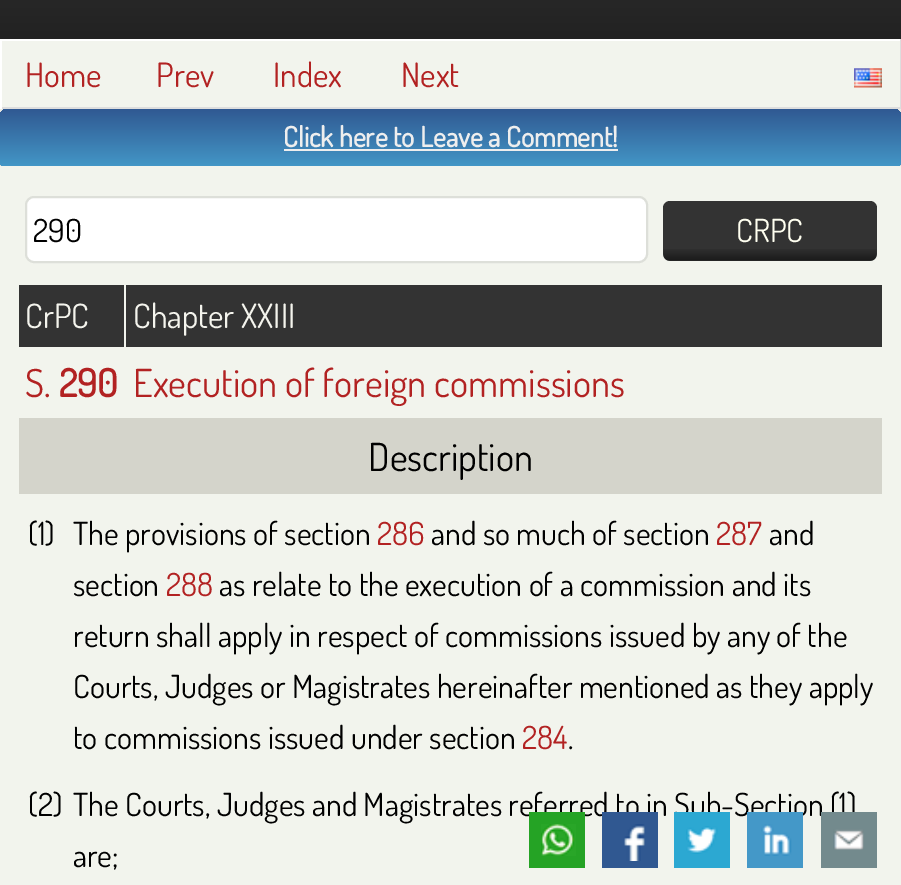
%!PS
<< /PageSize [901 885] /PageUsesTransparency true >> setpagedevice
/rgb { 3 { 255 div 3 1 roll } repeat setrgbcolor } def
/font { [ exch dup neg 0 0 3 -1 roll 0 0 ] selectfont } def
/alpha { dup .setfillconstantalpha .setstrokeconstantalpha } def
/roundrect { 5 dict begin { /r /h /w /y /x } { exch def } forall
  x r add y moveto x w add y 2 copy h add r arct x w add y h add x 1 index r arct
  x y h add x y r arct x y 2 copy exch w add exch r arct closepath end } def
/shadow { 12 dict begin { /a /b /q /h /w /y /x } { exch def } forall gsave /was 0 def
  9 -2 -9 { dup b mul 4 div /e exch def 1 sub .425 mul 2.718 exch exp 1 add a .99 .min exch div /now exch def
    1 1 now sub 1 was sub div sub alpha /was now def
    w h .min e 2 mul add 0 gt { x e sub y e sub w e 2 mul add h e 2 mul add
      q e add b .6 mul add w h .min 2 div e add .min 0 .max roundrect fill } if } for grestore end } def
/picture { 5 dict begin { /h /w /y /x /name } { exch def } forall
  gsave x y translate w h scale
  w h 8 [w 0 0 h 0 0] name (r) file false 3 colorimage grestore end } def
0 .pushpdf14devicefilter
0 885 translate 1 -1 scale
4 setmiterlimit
242 244 237 rgb
0 0 901 885 rectfill
gsave 0 0 moveto 901 0 lineto 901 39 lineto 0 39 lineto closepath clip newpath
<< /ShadingType 2 /ColorSpace /DeviceRGB /Coords [451 -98 451 39] /Extend [true true] /Function << /FunctionType 2 /Domain [0 1] /C0 [0.2 0.2 0.2] /C1 [0.133 0.133 0.133] /N 1 >> >> shfill grestore
[
  [0 39 901 2 255 255 255]
  [900 39 1 70 221 221 221]
  [0 107 901 2 221 221 221]
  [0 39 2 70 255 255 255]
] { aload pop rgb rectfill } forall
(img/1.rgb) 854 68 28 20 picture
gsave
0 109 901 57 rectclip
192 192 192 rgb
0 110 901 60 7 3.5 1 shadow
grestore
gsave
0 109 901 57 rectclip
gsave 0 109 901 59 7 roundrect clip newpath
<< /ShadingType 2 /ColorSpace /DeviceRGB /Coords [451 108 451 168] /Extend [true true] /Function << /FunctionType 2 /Domain [0 1] /C0 [0.188 0.345 0.569] /C1 [0.267 0.596 0.784] /N 1 >> >> shfill grestore
grestore
238 238 238 rgb
284 149 334 2 rectfill
255 255 255 rgb
26 197 621 65 8 roundrect gsave fill grestore
221 223 217 rgb
2 setlinewidth
stroke
51 51 51 rgb
663 201 214 60 7 roundrect fill
(img/2.rgb) 663 249 214 12 picture
[
  [19 285 105 62 51 51 51]
  [126 285 756 62 51 51 51]
  [19 418 863 76 212 212 203]
] { aload pop rgb rectfill } forall
/Dosis-Regular 33.5 font
178 34 34 rgb
[
  [(Home) 25 87]
  [(Prev) 156 87]
  [(Index) 273 87]
  [(Next) 401 87]
] { aload pop moveto show } forall
/Dosis-Bold 28 font
238 238 238 rgb
283 147 moveto (Click here to Leave a Comment!) show
/Dosis-Regular 31.9 font
0 0 0 rgb
33 242 moveto (290) show
255 255 240 rgb
736 242 moveto (CRPC) show
/Dosis-Regular 33.5 font
244 244 237 rgb
25 328 moveto (CrPC) show
133 328 moveto (Chapter XXIII) show
/Dosis-Regular 38.6 font
178 34 34 rgb
25 397 moveto (S.) show
/Dosis-Bold 38.6 font
59 397 moveto (290) show
/Dosis-Regular 38.6 font
133 397 moveto (Execution of foreign commissions) show
0 0 0 rgb
368 471 moveto (Description) show
/Dosis-Regular 31.9 font
28 545 moveto (\(1\)) show
73 545 moveto (The provisions of section) show
178 34 34 rgb
377 545 moveto (286) show
0 0 0 rgb
431 545 moveto (and so much of section) show
178 34 34 rgb
716 545 moveto (287) show
0 0 0 rgb
769 545 moveto (and) show
73 596 moveto (section) show
178 34 34 rgb
166 596 moveto (288) show
0 0 0 rgb
[
  [(as relate to the execution of a commission and its) 219 596]
  [(return shall apply in respect of commissions issued by any of the) 73 647]
  [(Courts, Judges or Magistrates hereinafter mentioned as they apply) 73 698]
  [(to commissions issued under section) 73 749]
] { aload pop moveto show } forall
178 34 34 rgb
522 749 moveto (284) show
0 0 0 rgb
[
  [(.) 568 749]
  [(\(2\)) 28 816]
  [(The Courts, Judges and Magistrates referred to in Sub-Section \(1\)) 73 816]
  [(are;) 73 867]
] { aload pop moveto show } forall
37 163 37 rgb
529 812 56 56 rectfill
(img/3.rgb) 541 824 35 32 picture
48 88 145 rgb
602 812 56 56 rectfill
(img/4.rgb) 624 824 21 37 picture
44 168 210 rgb
674 812 56 56 rectfill
(img/5.rgb) 686 826 32 28 picture
68 152 200 rgb
747 812 56 56 rectfill
(img/6.rgb) 761 824 31 32 picture
115 138 141 rgb
821 812 56 56 rectfill
(img/7.rgb) 833 829 31 21 picture
.poppdf14devicefilter showpage
